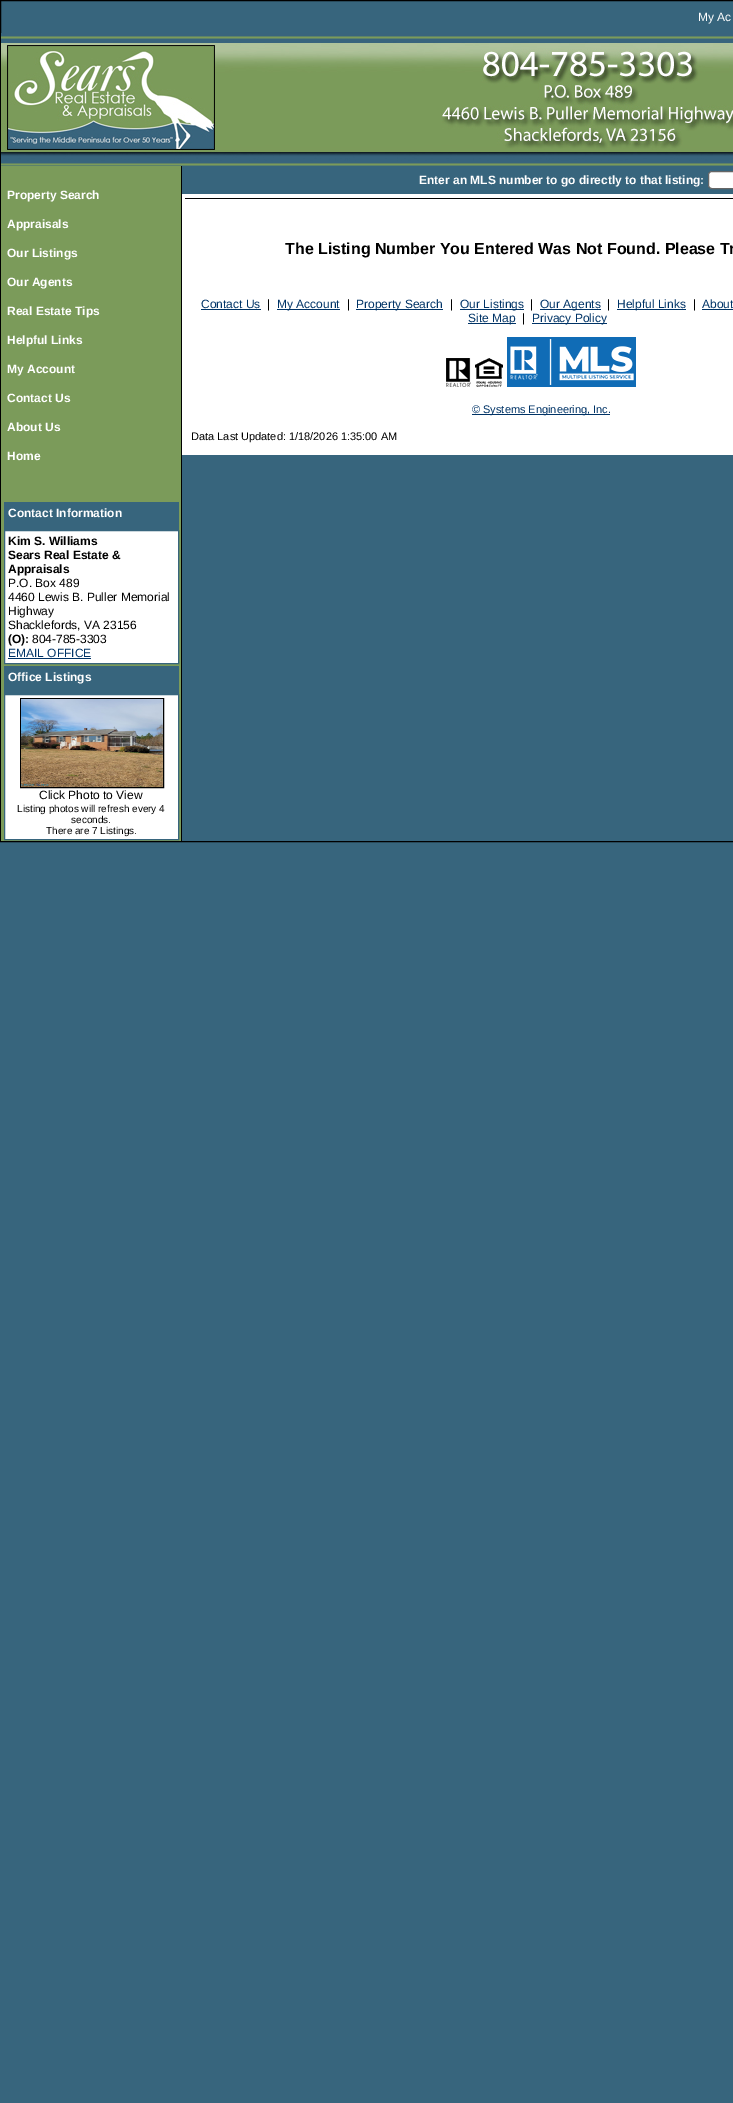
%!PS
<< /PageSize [733 2103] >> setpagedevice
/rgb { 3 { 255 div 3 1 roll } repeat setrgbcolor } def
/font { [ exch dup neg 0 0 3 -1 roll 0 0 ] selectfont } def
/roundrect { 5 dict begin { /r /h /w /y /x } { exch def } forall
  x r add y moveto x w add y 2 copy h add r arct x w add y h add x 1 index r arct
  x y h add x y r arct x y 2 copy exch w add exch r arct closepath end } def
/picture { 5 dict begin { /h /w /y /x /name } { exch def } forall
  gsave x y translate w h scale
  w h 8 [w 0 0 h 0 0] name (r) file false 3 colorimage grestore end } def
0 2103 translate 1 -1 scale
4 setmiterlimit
55 101 125 rgb
0 0 733 2103 rectfill
0 0 0 rgb
0.5 0.5 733 841 rectstroke
(img/1.rgb) 1 33 732 133 picture
[
  [1 166 180 675 123 155 90]
  [181 166 1 675 0 0 0]
  [4 502 175 28 55 101 125]
] { aload pop rgb rectfill } forall
255 255 255 rgb
4.5 530.5 moveto 178.5 530.5 lineto 178.5 663.5 lineto 4.5 663.5 lineto closepath gsave fill grestore
55 101 125 rgb
stroke
0 51 102 rgb
8 658 83 1 rectfill
55 101 125 rgb
4 666 175 28 rectfill
255 255 255 rgb
4.5 694.5 moveto 178.5 694.5 lineto 178.5 839.5 lineto 4.5 839.5 lineto closepath gsave fill grestore
55 101 125 rgb
stroke
0 0 0 rgb
20.5 698.5 143 89 rectstroke
(img/2.rgb) 21 699 142 88 picture
255 255 255 rgb
182 194 551 261 rectfill
708.5 171.5 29 17 3.5 roundrect gsave fill grestore
102 102 102 rgb
stroke
[
  [185 198 548 1 0 0 0]
  [201 309 60 1 0 51 102]
  [277 309 63 1 0 51 102]
  [356 309 87 1 0 51 102]
  [460 309 64 1 0 51 102]
  [540 309 61 1 0 51 102]
  [617 309 69 1 0 51 102]
  [702 309 31 1 0 51 102]
  [468 323 48 1 0 51 102]
  [532 323 75 1 0 51 102]
] { aload pop rgb rectfill } forall
(img/3.rgb) 446 358 25 29 picture
(img/4.rgb) 475 358 28 29 picture
(img/5.rgb) 507 337 129 50 picture
472 414 138 1 rectfill
/LiberationSans-Regular 12 font
255 255 255 rgb
698 21 moveto (My Ac) show
/LiberationSans-Bold 12 font
[
  [(Property Search) 7 199]
  [(Appraisals) 7 228]
  [(Our Listings) 7 257]
  [(Our Agents) 7 286]
  [(Real Estate Tips) 7 315]
  [(Helpful Links) 7 344]
  [(My Account) 7 373]
  [(Contact Us) 7 402]
  [(About Us) 7 431]
  [(Home) 7 460]
  [(Contact Information) 8 517]
] { aload pop moveto show } forall
0 0 0 rgb
[
  [(Kim S. Williams) 8 545]
  [(Sears Real Estate &) 8 559]
  [(Appraisals) 8 573]
] { aload pop moveto show } forall
/LiberationSans-Regular 12 font
[
  [(P.O. Box 489) 8 587]
  [(4460 Lewis B. Puller Memorial) 8 601]
  [(Highway) 8 615]
  [(Shacklefords, VA 23156) 8 629]
] { aload pop moveto show } forall
/LiberationSans-Bold 12 font
8 643 moveto (\(O\):) show
/LiberationSans-Regular 12 font
32 643 moveto (804-785-3303) show
0 51 102 rgb
8 657 moveto (EMAIL OFFICE) show
/LiberationSans-Bold 12 font
255 255 255 rgb
8 681 moveto (Office Listings) show
/LiberationSans-Regular 12 font
0 0 0 rgb
39 799 moveto (Click Photo to View) show
/LiberationSans-Regular 10 font
[
  [(Listing photos will refresh every 4) 17 812]
  [(seconds.) 71 823]
  [(There are 7 Listings.) 46 834]
] { aload pop moveto show } forall
/LiberationSans-Bold 12 font
255 255 255 rgb
419 184 moveto (Enter an MLS number to go directly to that listing:) show
/LiberationSans-Bold 16 font
0 0 0 rgb
285 254 moveto (The Listing Number You Entered Was Not Found. Please Tr) show
/LiberationSans-Regular 12 font
0 51 102 rgb
201 308 moveto (Contact Us) show
0 0 0 rgb
267 308 moveto (|) show
0 51 102 rgb
277 308 moveto (My Account) show
0 0 0 rgb
347 308 moveto (|) show
0 51 102 rgb
356 308 moveto (Property Search) show
0 0 0 rgb
450 308 moveto (|) show
0 51 102 rgb
460 308 moveto (Our Listings) show
0 0 0 rgb
530 308 moveto (|) show
0 51 102 rgb
540 308 moveto (Our Agents) show
0 0 0 rgb
607 308 moveto (|) show
0 51 102 rgb
617 308 moveto (Helpful Links) show
0 0 0 rgb
693 308 moveto (|) show
0 51 102 rgb
702 308 moveto (About) show
468 322 moveto (Site Map) show
0 0 0 rgb
522 322 moveto (|) show
0 51 102 rgb
532 322 moveto (Privacy Policy) show
/LiberationSans-Regular 11 font
472 413 moveto (© Systems Engineering, Inc.) show
0 0 0 rgb
191 440 moveto (Data Last Updated: 1/18/2026 1:35:00 AM) show
showpage
